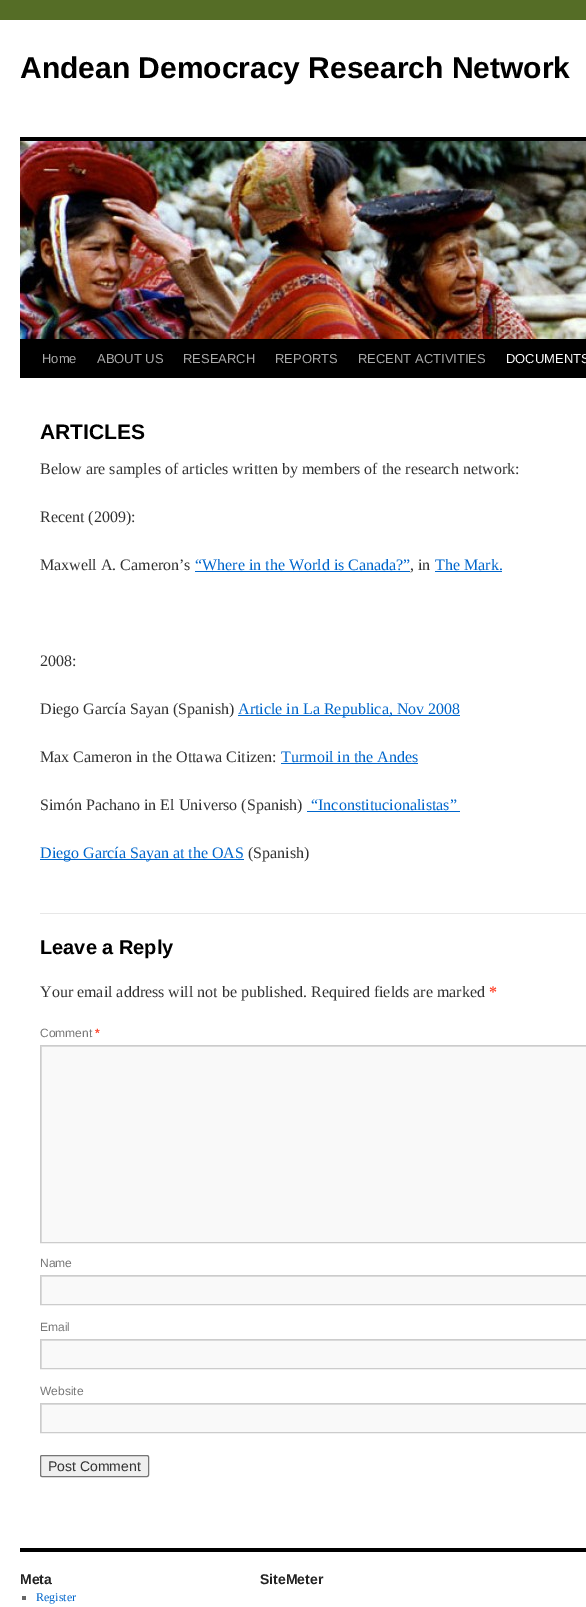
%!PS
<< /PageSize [586 1607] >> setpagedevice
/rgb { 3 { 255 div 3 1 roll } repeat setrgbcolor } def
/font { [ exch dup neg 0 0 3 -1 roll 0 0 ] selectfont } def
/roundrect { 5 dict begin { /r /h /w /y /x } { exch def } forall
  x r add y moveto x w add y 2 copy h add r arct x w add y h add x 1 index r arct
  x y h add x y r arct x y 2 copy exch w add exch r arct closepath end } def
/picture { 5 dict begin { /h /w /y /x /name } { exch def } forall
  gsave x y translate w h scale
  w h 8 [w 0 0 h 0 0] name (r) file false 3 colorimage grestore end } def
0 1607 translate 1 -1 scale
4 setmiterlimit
85 109 38 rgb
0 0 586 1607 rectfill
[
  [0 20 586 1587 255 255 255]
  [20 137 566 4 0 0 0]
  [20 339 566 39 0 0 0]
] { aload pop rgb rectfill } forall
(img/1.rgb) 20 141 566 198 picture
[
  [195 571 215 1 0 102 204]
  [435 571 67 1 0 102 204]
  [238 715 222 1 0 102 204]
  [281 763 137 1 0 102 204]
  [307 811 153 1 0 102 204]
  [40 859 204 1 0 102 204]
  [40 913 546 1 231 231 231]
  [42 1047 544 195 249 249 249]
] { aload pop rgb rectfill } forall
gsave
41 1046 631 196 rectclip
224 224 224 rgb
-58 947 moveto 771 947 lineto 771 1341 lineto -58 1341 lineto closepath 42 1047 moveto 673 1047 lineto 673 1243 lineto 42 1243 lineto closepath eofill
grestore
204 204 204 rgb
40.5 1045.5 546 197 rectstroke
249 249 249 rgb
42 1277 544 27 rectfill
gsave
41 1276 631 28 rectclip
224 224 224 rgb
-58 1177 moveto 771 1177 lineto 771 1403 lineto -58 1403 lineto closepath 42 1277 moveto 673 1277 lineto 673 1305 lineto 42 1305 lineto closepath eofill
grestore
204 204 204 rgb
40.5 1275.5 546 29 rectstroke
249 249 249 rgb
42 1341 544 27 rectfill
gsave
41 1340 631 28 rectclip
224 224 224 rgb
-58 1241 moveto 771 1241 lineto 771 1467 lineto -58 1467 lineto closepath 42 1341 moveto 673 1341 lineto 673 1369 lineto 42 1369 lineto closepath eofill
grestore
204 204 204 rgb
40.5 1339.5 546 29 rectstroke
249 249 249 rgb
42 1405 544 27 rectfill
gsave
41 1404 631 28 rectclip
224 224 224 rgb
-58 1305 moveto 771 1305 lineto 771 1531 lineto -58 1531 lineto closepath 42 1405 moveto 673 1405 lineto 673 1433 lineto 42 1433 lineto closepath eofill
grestore
204 204 204 rgb
40.5 1403.5 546 29 rectstroke
239 239 239 rgb
40.5 1455.5 108 21 1.5 roundrect gsave fill grestore
118 118 118 rgb
stroke
0 0 0 rgb
20 1548 566 4 rectfill
102 102 102 rgb
22 1596 4 4 rectfill
/LiberationSans-Bold 30 font
0 0 0 rgb
20 78 moveto (Andean Democracy Research Network) show
/LiberationSans-Regular 13 font
170 170 170 rgb
[
  [(Home) 42 363]
  [(ABOUT US) 97 363]
  [(RESEARCH) 183 363]
  [(REPORTS) 275 363]
  [(RECENT ACTIVITIES) 358 363]
] { aload pop moveto show } forall
255 255 255 rgb
506 363 moveto (DOCUMENTS) show
/LiberationSans-Bold 21 font
0 0 0 rgb
40 439 moveto (ARTICLES) show
/LiberationSerif-Regular 16 font
51 51 51 rgb
[
  [(Below are samples of articles written by members of the research network:) 40 474]
  [(Recent \(2009\):) 40 522]
  [(Maxwell A. Cameron’s) 40 570]
] { aload pop moveto show } forall
0 102 204 rgb
195 570 moveto (“Where in the World is Canada?”) show
51 51 51 rgb
410 570 moveto (, in) show
0 102 204 rgb
435 570 moveto (The Mark.) show
51 51 51 rgb
40 666 moveto (2008:) show
40 714 moveto (Diego García Sayan \(Spanish\)) show
0 102 204 rgb
238 714 moveto (Article in La Republica, Nov 2008) show
51 51 51 rgb
40 762 moveto (Max Cameron in the Ottawa Citizen:) show
0 102 204 rgb
281 762 moveto (Turmoil in the Andes) show
51 51 51 rgb
40 810 moveto (Simón Pachano in El Universo \(Spanish\)) show
0 102 204 rgb
311 810 moveto (“Inconstitucionalistas”) show
40 858 moveto (Diego García Sayan at the OAS) show
51 51 51 rgb
248 858 moveto (\(Spanish\)) show
/LiberationSans-Bold 20 font
0 0 0 rgb
40 954 moveto (Leave a Reply) show
/LiberationSerif-Regular 16 font
51 51 51 rgb
40 997 moveto (Your email address will not be published. Required fields are marked) show
/LiberationSerif-Bold 16 font
255 75 51 rgb
489 997 moveto (*) show
/LiberationSans-Regular 12 font
119 119 119 rgb
40 1037 moveto (Comment) show
/LiberationSans-Bold 12 font
255 75 51 rgb
95 1037 moveto (*) show
/LiberationSans-Regular 12 font
119 119 119 rgb
[
  [(Name) 40 1267]
  [(Email) 40 1331]
  [(Website) 40 1395]
] { aload pop moveto show } forall
/LiberationSans-Regular 14 font
51 51 51 rgb
48 1471 moveto (Post Comment) show
/LiberationSans-Bold 14 font
34 34 34 rgb
20 1584 moveto (Meta) show
/LiberationSerif-Regular 12 font
0 102 204 rgb
36 1601 moveto (Register) show
/LiberationSans-Bold 14 font
34 34 34 rgb
260 1584 moveto (SiteMeter) show
showpage
